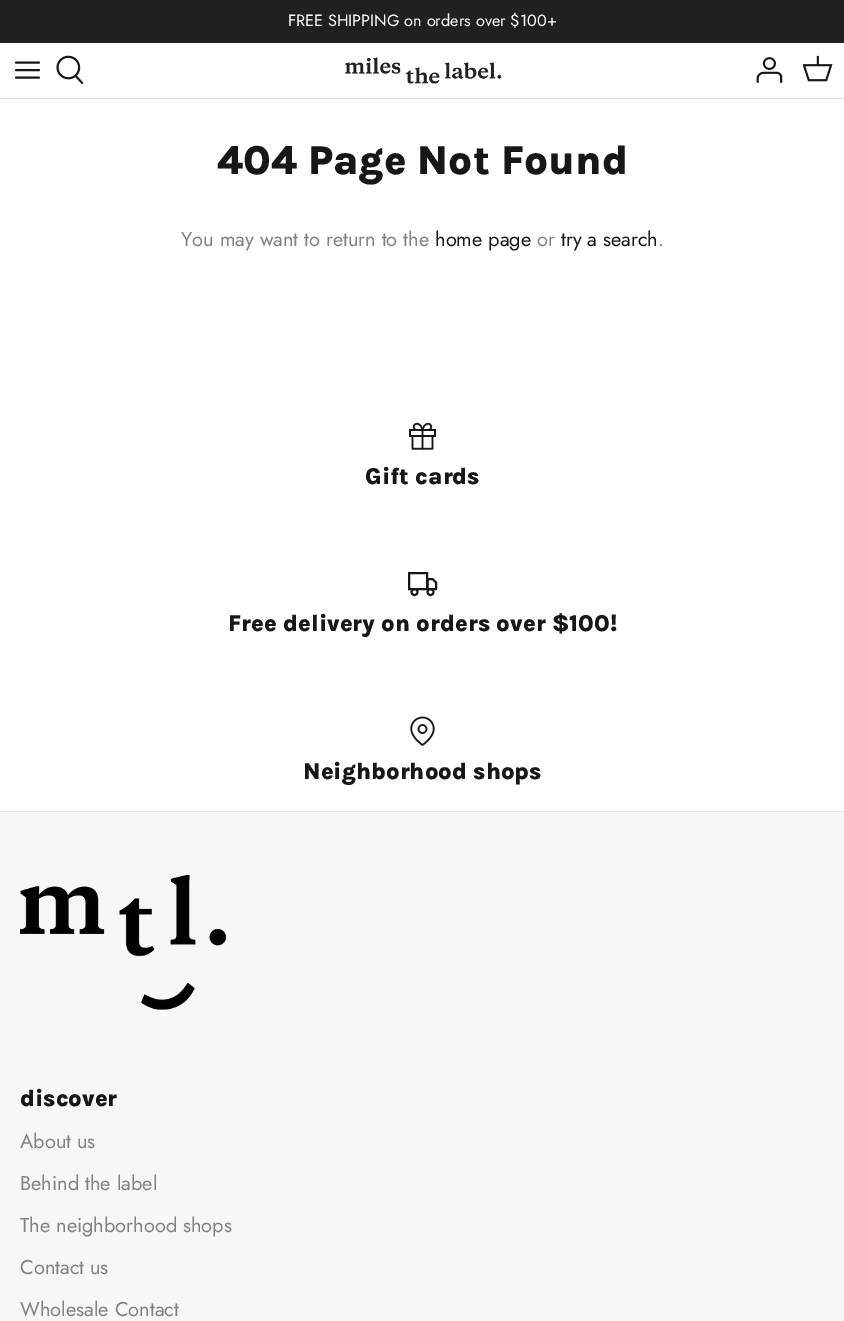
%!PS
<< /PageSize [844 1321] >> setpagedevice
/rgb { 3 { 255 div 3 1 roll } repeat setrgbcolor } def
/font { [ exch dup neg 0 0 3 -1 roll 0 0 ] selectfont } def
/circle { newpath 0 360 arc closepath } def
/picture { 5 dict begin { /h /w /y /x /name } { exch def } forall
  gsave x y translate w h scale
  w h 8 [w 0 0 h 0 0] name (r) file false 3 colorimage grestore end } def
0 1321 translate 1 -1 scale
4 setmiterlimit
255 255 255 rgb
0 0 844 1321 rectfill
32 32 32 rgb
0 0 844 43 rectfill
226 226 226 rgb
0 98 844 1 rectfill
23 23 23 rgb
1.9 setlinewidth
1 setlinecap
1 setlinejoin
16 70 moveto 39 70 lineto 16 62.5 moveto 39 62.5 lineto 16 77.5 moveto 39 77.5 lineto stroke
(img/1.rgb) 56 55 28 30 picture
(img/2.rgb) 345 57 157 27 picture
(img/3.rgb) 756 57 27 26 picture
(img/4.rgb) 803 55 30 27 picture
247 247 248 rgb
0 812 844 509 rectfill
(img/5.rgb) 409 422 27 28 picture
23 23 23 rgb
2 setlinewidth
0 setlinecap
0 setlinejoin
409 573 18 16 rectstroke
1.9 setlinewidth
1 setlinecap
1 setlinejoin
427.5 579 moveto 432.5 579 lineto 436 582.5 lineto 436 589 lineto 427.5 589 lineto closepath stroke
0 setlinecap
0 setlinejoin
414.5 592 3 circle stroke
430.5 592 3 circle stroke
(img/6.rgb) 410 716 25 30 picture
228 228 228 rgb
0 811 844 1 rectfill
(img/7.rgb) 20 875 207 135 picture
/Jost-Regular 16.25 font
255 255 255 rgb
288 26 moveto (FREE SHIPPING on orders over $100+) show
/Karla-ExtraBold 41.25 font
23 23 23 rgb
217 174 moveto (404 Page Not Found) show
/Jost-Regular 20 font
128 130 132 rgb
181 246 moveto (You may want to return to the) show
23 23 23 rgb
435 246 moveto (home page) show
128 130 132 rgb
537 246 moveto (or) show
23 23 23 rgb
561 246 moveto (try a search) show
128 130 132 rgb
658 246 moveto (.) show
/Karla-ExtraBold 23.4 font
23 23 23 rgb
[
  [(Gift cards) 365 484]
  [(Free delivery on orders over $100!) 228 631]
  [(Neighborhood shops) 303 779]
  [(discover) 20 1106]
] { aload pop moveto show } forall
/Jost-Regular 20 font
128 130 132 rgb
[
  [(About us) 20 1148]
  [(Behind the label) 20 1190]
  [(The neighborhood shops) 20 1232]
  [(Contact us) 20 1274]
  [(Wholesale Contact) 20 1316]
] { aload pop moveto show } forall
showpage
